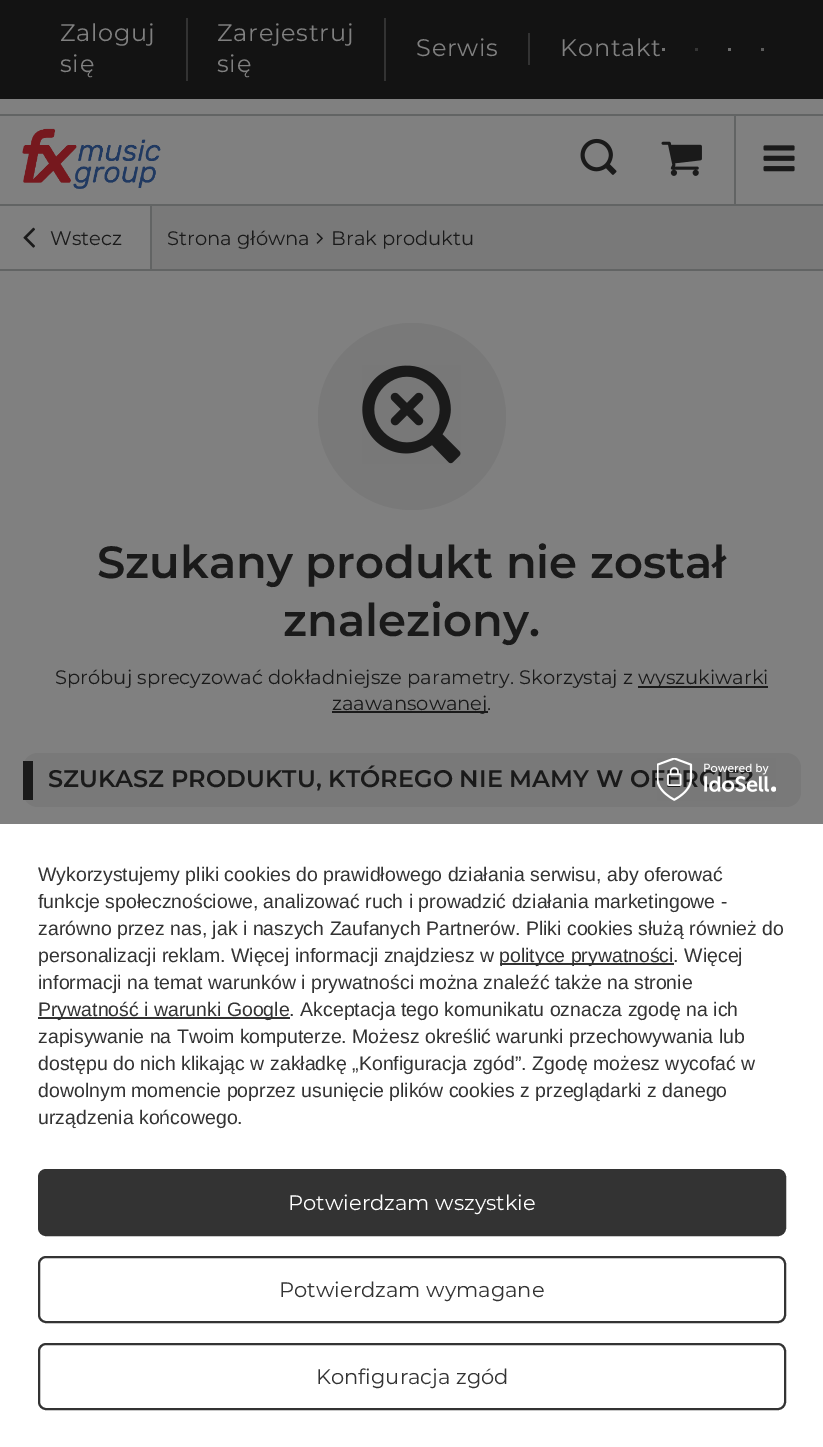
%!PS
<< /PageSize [823 1447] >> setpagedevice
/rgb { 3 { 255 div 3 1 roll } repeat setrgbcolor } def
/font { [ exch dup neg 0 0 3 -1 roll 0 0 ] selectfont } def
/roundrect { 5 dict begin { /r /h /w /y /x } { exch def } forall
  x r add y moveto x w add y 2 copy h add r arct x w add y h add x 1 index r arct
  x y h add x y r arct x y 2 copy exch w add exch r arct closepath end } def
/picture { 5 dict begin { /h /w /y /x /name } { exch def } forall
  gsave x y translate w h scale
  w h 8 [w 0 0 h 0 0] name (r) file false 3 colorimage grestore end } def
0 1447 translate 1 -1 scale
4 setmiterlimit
128 128 128 rgb
0 0 823 1447 rectfill
[
  [0 204 823 2 98 100 100]
  [0 0 823 99 19 19 19]
  [186 18 2 63 51 51 51]
  [384 18 2 63 51 51 51]
  [528 33 2 32 51 51 51]
  [662 48 3 3 115 115 115]
  [695 48 3 3 53 53 53]
  [728 48 3 3 107 107 107]
  [761 48 3 3 92 92 92]
  [734 114 2 90 98 100 100]
  [0 114 823 2 98 100 100]
] { aload pop rgb rectfill } forall
(img/1.rgb) 22 128 139 61 picture
(img/2.rgb) 580 138 37 37 picture
(img/3.rgb) 661 141 41 35 picture
(img/4.rgb) 763 145 32 27 picture
121 121 121 rgb
152 206 671 63 rectfill
(img/5.rgb) 23 227 12 21 picture
98 100 100 rgb
150 206 2 64 rectfill
(img/6.rgb) 316 233 7 11 picture
0 269 823 2 rectfill
121 121 121 rgb
318 323 188 187 93.5 roundrect fill
(img/7.rgb) 362 365 99 99 picture
26 26 26 rgb
638 686 130 2 rectfill
332 711 156 2 rectfill
121 121 121 rgb
23 753 778 54 15 roundrect fill
[
  [23 761 10 39 26 26 26]
  [0 824 823 623 255 255 255]
  [500 963 174 2 51 51 51]
  [38 1017 252 2 51 51 51]
] { aload pop rgb rectfill } forall
39 1170 746 65 7 roundrect gsave fill grestore
2 setlinewidth
stroke
39 1257 746 65 7 roundrect stroke
39 1344 746 65 7 roundrect stroke
/Montserrat-Regular 24 font
128 128 128 rgb
60 41 moveto 0.75 0 (Zaloguj) ashow
60 72 moveto 0.75 0 (się) ashow
217 41 moveto 0.75 0 (Zarejestruj) ashow
217 72 moveto 0.75 0 (się) ashow
416 56 moveto 0.75 0 (Serwis) ashow
560 56 moveto 0.75 0 (Kontakt) ashow
/Montserrat-Regular 19.5 font
26 26 26 rgb
[
  [(Wstecz) 50 245]
  [(Strona główna) 167 245]
  [(Brak produktu) 331 245]
] { aload pop moveto show } forall
/Montserrat-SemiBold 45 font
97 578 moveto (Szukany produkt nie został) show
283 636 moveto (znaleziony.) show
/Montserrat-Regular 19.5 font
[
  [(Spróbuj sprecyzować dokładniejsze parametry. Skorzystaj z) 55 684]
  [(wyszukiwarki) 638 684]
  [(zaawansowanej.) 332 710]
] { aload pop moveto show } forall
/Montserrat-SemiBold 24 font
48 787 moveto (SZUKASZ PRODUKTU, KTÓREGO NIE MAMY W OFERCIE?) show
(img/8.rgb) 657 758 119 43 picture
/LiberationSans-Regular 19.5 font
51 51 51 rgb
[
  [(Wykorzystujemy pliki cookies do prawidłowego działania serwisu, aby oferować) 38 881]
  [(funkcje społecznościowe, analizować ruch i prowadzić działania marketingowe -) 38 908]
  [(zarówno przez nas, jak i naszych Zaufanych Partnerów. Pliki cookies służą również do) 38 935]
  [(personalizacji reklam. Więcej informacji znajdziesz w) 38 962]
  [(polityce prywatności. Więcej) 499 962]
  [(informacji na temat warunków i prywatności można znaleźć także na stronie) 38 989]
  [(Prywatność i warunki Google. Akceptacja tego komunikatu oznacza zgodę na ich) 38 1016]
  [(zapisywanie na Twoim komputerze. Możesz określić warunki przechowywania lub) 38 1043]
  [(dostępu do nich klikając w zakładkę „Konfiguracja zgód”. Zgodę możesz wycofać w) 38 1070]
  [(dowolnym momencie poprzez usunięcie plików cookies z przeglądarki z danego) 38 1097]
  [(urządzenia końcowego.) 38 1124]
] { aload pop moveto show } forall
/Montserrat-Regular 21 font
255 255 255 rgb
288 1210 moveto (Potwierdzam wszystkie) show
51 51 51 rgb
279 1297 moveto (Potwierdzam wymagane) show
316 1384 moveto (Konfiguracja zgód) show
showpage
